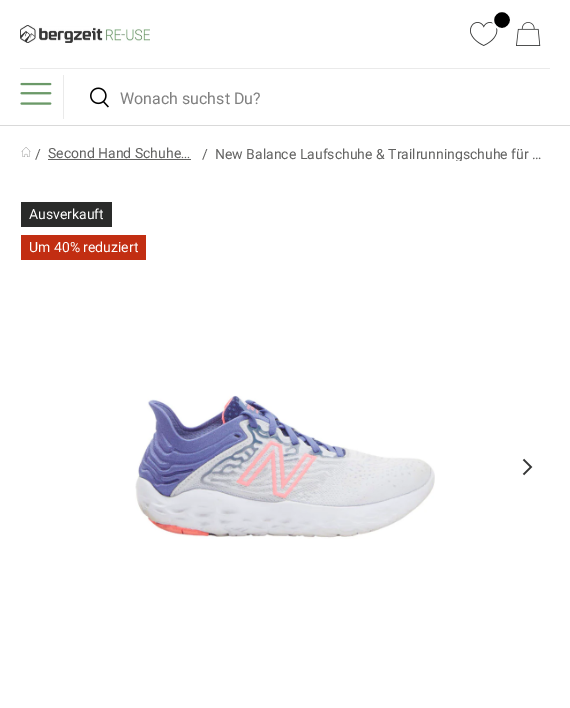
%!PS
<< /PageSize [570 708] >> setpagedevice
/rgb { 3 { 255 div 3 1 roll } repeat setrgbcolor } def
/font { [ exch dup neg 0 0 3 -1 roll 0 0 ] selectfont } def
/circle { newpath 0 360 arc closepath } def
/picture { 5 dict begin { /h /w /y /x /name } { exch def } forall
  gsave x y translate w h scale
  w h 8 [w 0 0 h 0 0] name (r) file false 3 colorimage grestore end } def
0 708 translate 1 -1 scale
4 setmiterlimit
255 255 255 rgb
0 0 570 708 rectfill
217 217 217 rgb
0 125 570 1 rectfill
(img/1.rgb) 20 25 130 18 picture
(img/2.rgb) 470 22 28 24 picture
0 0 0 rgb
502 20 9 circle gsave fill grestore
255 255 255 rgb
2 setlinewidth
stroke
(img/3.rgb) 516 22 25 24 picture
234 234 234 rgb
20 68 530 1 rectfill
63 75 1 44 rectfill
(img/4.rgb) 20 82 32 23 picture
(img/5.rgb) 90 87 19 21 picture
(img/6.rgb) 21 147 10 10 picture
[
  [48 159 143 1 98 98 97]
  [21 202 91 25 42 43 42]
  [21 235 125 25 194 46 18]
] { aload pop rgb rectfill } forall
(img/7.rgb) 135 395 300 144 picture
52 53 53 rgb
1.5 setlinewidth
523.5 459.5 moveto 531 467 lineto 523.5 474.5 lineto stroke
/Roboto-Regular 16 font
128 128 128 rgb
120 104 moveto (Wonach suchst Du?) show
/Roboto-Regular 14 font
98 98 97 rgb
35 159 moveto (/) show
48 158 moveto (Second Hand Schuhe) show
/Roboto-Regular 12 font
181 158 moveto (...) show
/Roboto-Regular 14 font
202 159 moveto (/) show
gsave
215 147 335 14 rectclip
215 159 moveto (New Balance Laufschuhe & Trailrunningschuhe für …) show
grestore
255 255 255 rgb
29 219 moveto (Ausverkauft) show
29 252 moveto (Um 40% reduziert) show
showpage
